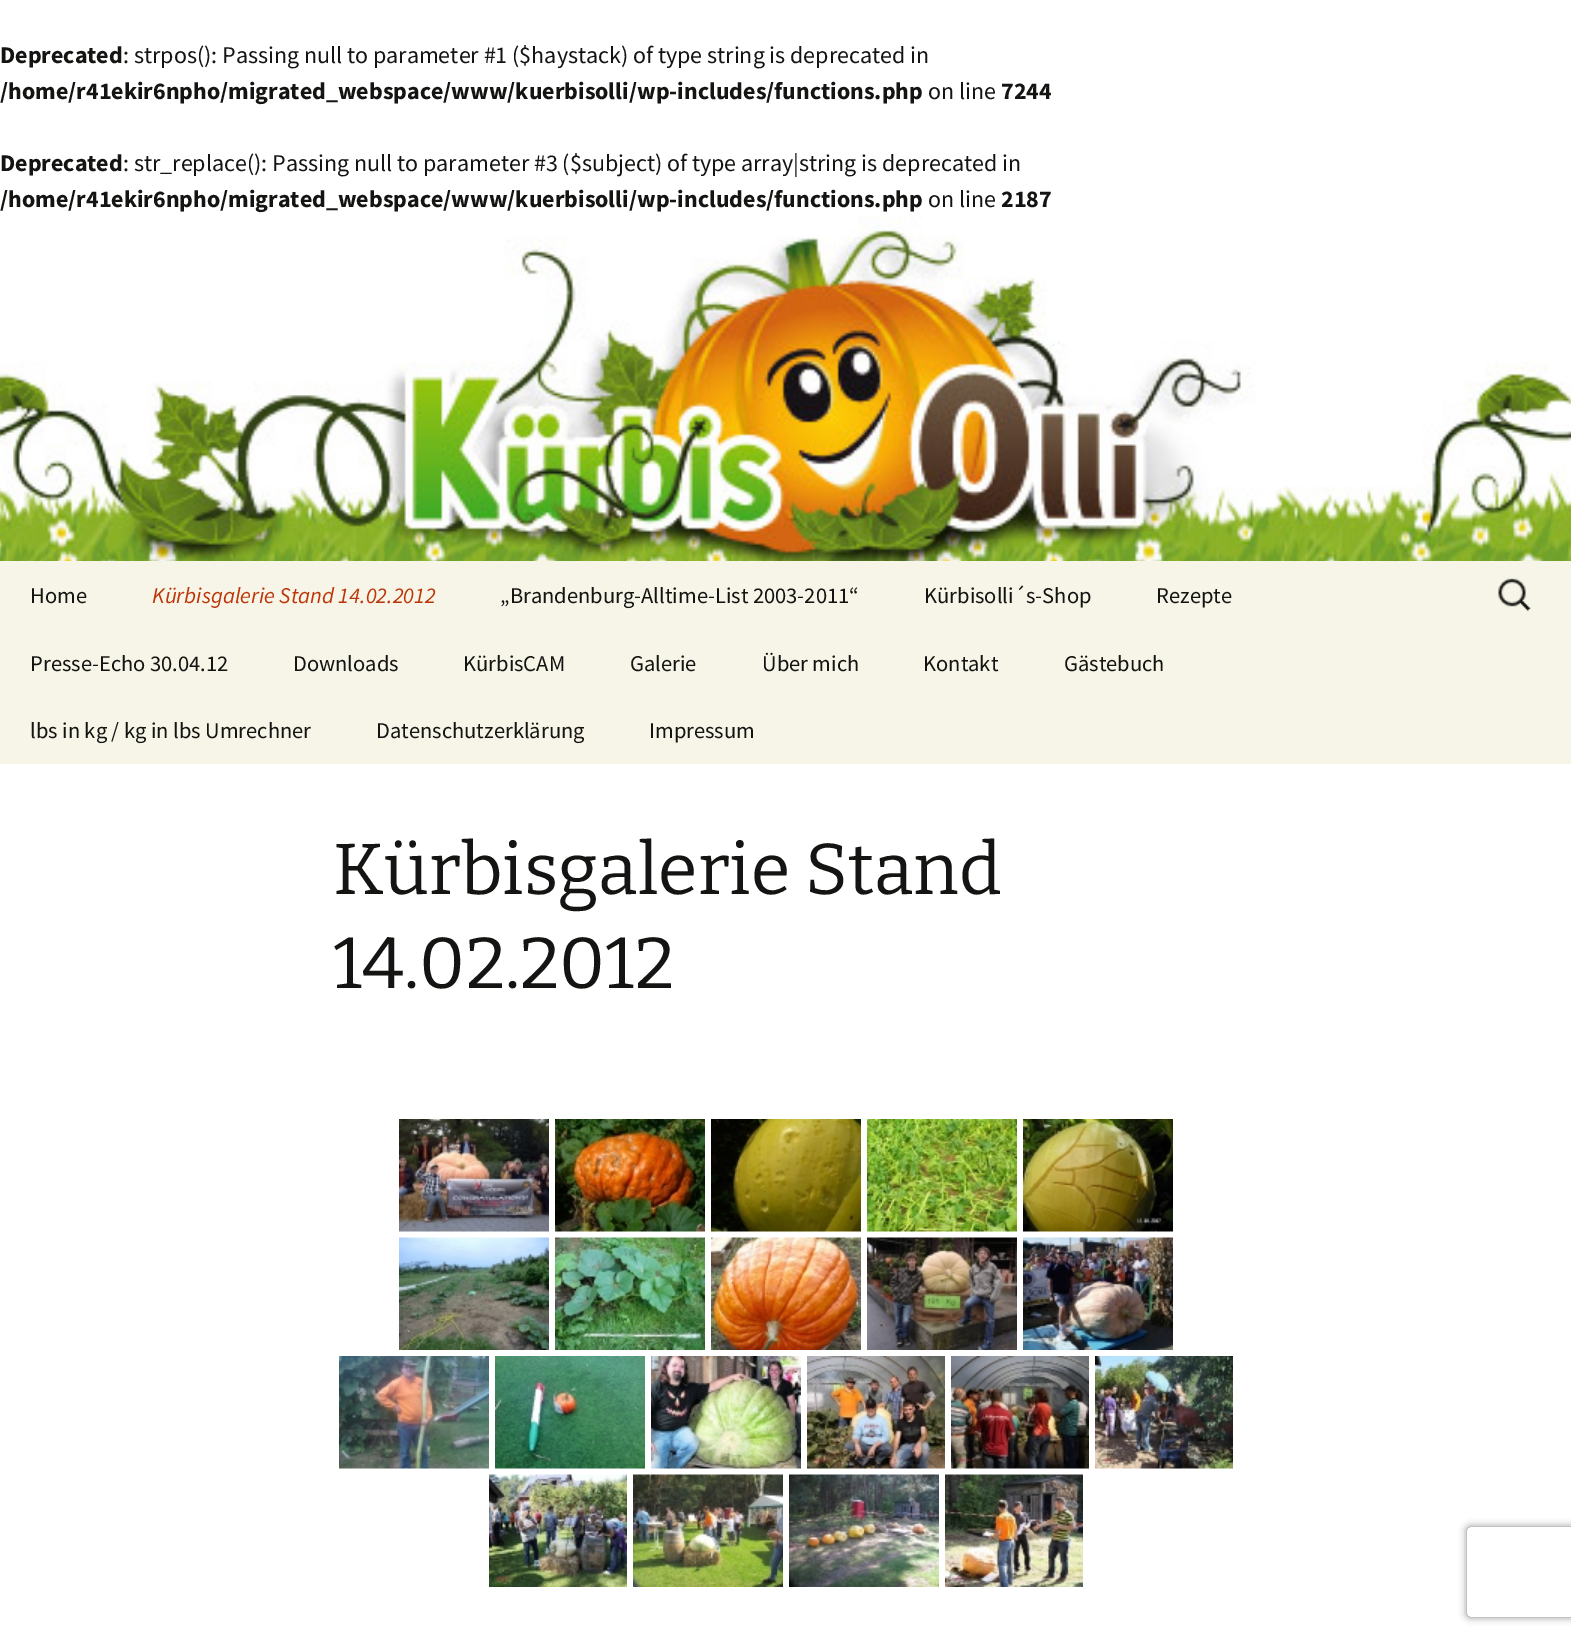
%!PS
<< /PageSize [1571 1637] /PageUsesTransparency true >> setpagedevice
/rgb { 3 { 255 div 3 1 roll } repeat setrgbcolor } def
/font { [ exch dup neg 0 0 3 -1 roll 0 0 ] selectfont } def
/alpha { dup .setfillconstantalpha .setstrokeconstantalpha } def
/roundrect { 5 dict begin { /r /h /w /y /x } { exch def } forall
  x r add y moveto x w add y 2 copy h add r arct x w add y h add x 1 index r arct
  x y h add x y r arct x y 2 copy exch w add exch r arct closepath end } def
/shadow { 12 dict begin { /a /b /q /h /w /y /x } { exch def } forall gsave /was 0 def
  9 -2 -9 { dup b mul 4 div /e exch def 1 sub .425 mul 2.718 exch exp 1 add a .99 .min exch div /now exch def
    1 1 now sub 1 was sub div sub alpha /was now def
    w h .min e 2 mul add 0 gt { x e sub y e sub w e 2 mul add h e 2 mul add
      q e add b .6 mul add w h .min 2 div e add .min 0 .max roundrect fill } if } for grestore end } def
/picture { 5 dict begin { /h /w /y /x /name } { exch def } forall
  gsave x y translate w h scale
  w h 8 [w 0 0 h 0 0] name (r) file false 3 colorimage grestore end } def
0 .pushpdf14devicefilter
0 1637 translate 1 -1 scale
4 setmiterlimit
255 255 255 rgb
0 0 1571 1637 rectfill
(img/1.rgb) 0 216 1571 345 picture
247 245 231 rgb
0 561 1571 203 rectfill
(img/2.rgb) 1498 578 33 33 picture
(img/3.rgb) 399 1119 150 113 picture
(img/4.rgb) 555 1119 150 113 picture
(img/5.rgb) 711 1119 150 113 picture
(img/6.rgb) 867 1119 150 113 picture
(img/7.rgb) 1023 1119 150 113 picture
(img/8.rgb) 399 1237 150 113 picture
(img/9.rgb) 555 1237 150 113 picture
(img/10.rgb) 711 1237 150 113 picture
(img/11.rgb) 867 1237 150 113 picture
(img/12.rgb) 1023 1237 150 113 picture
(img/13.rgb) 339 1356 150 113 picture
(img/14.rgb) 495 1356 150 113 picture
(img/15.rgb) 651 1356 150 113 picture
(img/16.rgb) 807 1356 138 113 picture
(img/17.rgb) 951 1356 138 113 picture
(img/18.rgb) 1095 1356 138 113 picture
(img/19.rgb) 489 1474 138 113 picture
(img/20.rgb) 633 1474 150 113 picture
(img/21.rgb) 789 1474 150 113 picture
(img/22.rgb) 945 1474 138 113 picture
gsave
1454 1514 moveto 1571 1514 lineto 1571 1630 lineto 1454 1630 lineto closepath 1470 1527 moveto 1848 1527 lineto 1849.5 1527 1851 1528.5 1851 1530 curveto 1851 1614 lineto 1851 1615.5 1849.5 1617 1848 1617 curveto 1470 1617 lineto 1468.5 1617 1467 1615.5 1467 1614 curveto 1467 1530 lineto 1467 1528.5 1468.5 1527 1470 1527 curveto closepath eoclip newpath
128 128 128 rgb
1467 1527 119 90 3 4 1 shadow
grestore
/SourceSansPro-Bold 24 font
20 20 18 rgb
0 63 moveto (Deprecated) show
/SourceSansPro-Regular 24 font
123 63 moveto (: strpos\(\): Passing null to parameter #1 \($haystack\) of type string is deprecated in) show
/SourceSansPro-Bold 24 font
0 99 moveto (/home/r41ekir6npho/migrated_webspace/www/kuerbisolli/wp-includes/functions.php) show
/SourceSansPro-Regular 24 font
928 99 moveto (on line) show
/SourceSansPro-Bold 24 font
1001 99 moveto (7244) show
0 171 moveto (Deprecated) show
/SourceSansPro-Regular 24 font
123 171 moveto (: str_replace\(\): Passing null to parameter #3 \($subject\) of type array|string is deprecated in) show
/SourceSansPro-Bold 24 font
0 207 moveto (/home/r41ekir6npho/migrated_webspace/www/kuerbisolli/wp-includes/functions.php) show
/SourceSansPro-Regular 24 font
928 207 moveto (on line) show
/SourceSansPro-Bold 24 font
1001 207 moveto (2187) show
/SourceSansPro-Regular 22.5 font
30 603 moveto (Home) show
/SourceSansPro-Italic 22.5 font
188 54 10 rgb
152 603 moveto (Kürbisgalerie Stand 14.02.2012) show
/SourceSansPro-Regular 22.5 font
20 20 18 rgb
[
  [(„Brandenburg-Alltime-List 2003-2011“) 500 603]
  [(Kürbisolli´s-Shop) 924 603]
  [(Rezepte) 1156 603]
  [(Presse-Echo 30.04.12) 30 671]
  [(Downloads) 293 671]
  [(KürbisCAM) 463 671]
  [(Galerie) 630 671]
  [(Über mich) 762 671]
  [(Kontakt) 923 671]
  [(Gästebuch) 1064 671]
  [(lbs in kg / kg in lbs Umrechner) 30 738]
  [(Datenschutzerklärung) 376 738]
  [(Impressum) 649 738]
] { aload pop moveto show } forall
/Bitter-Thin 72 font
333 894 moveto (Kürbisgalerie Stand) show
333 988 moveto (14.02.2012) show
.poppdf14devicefilter showpage
